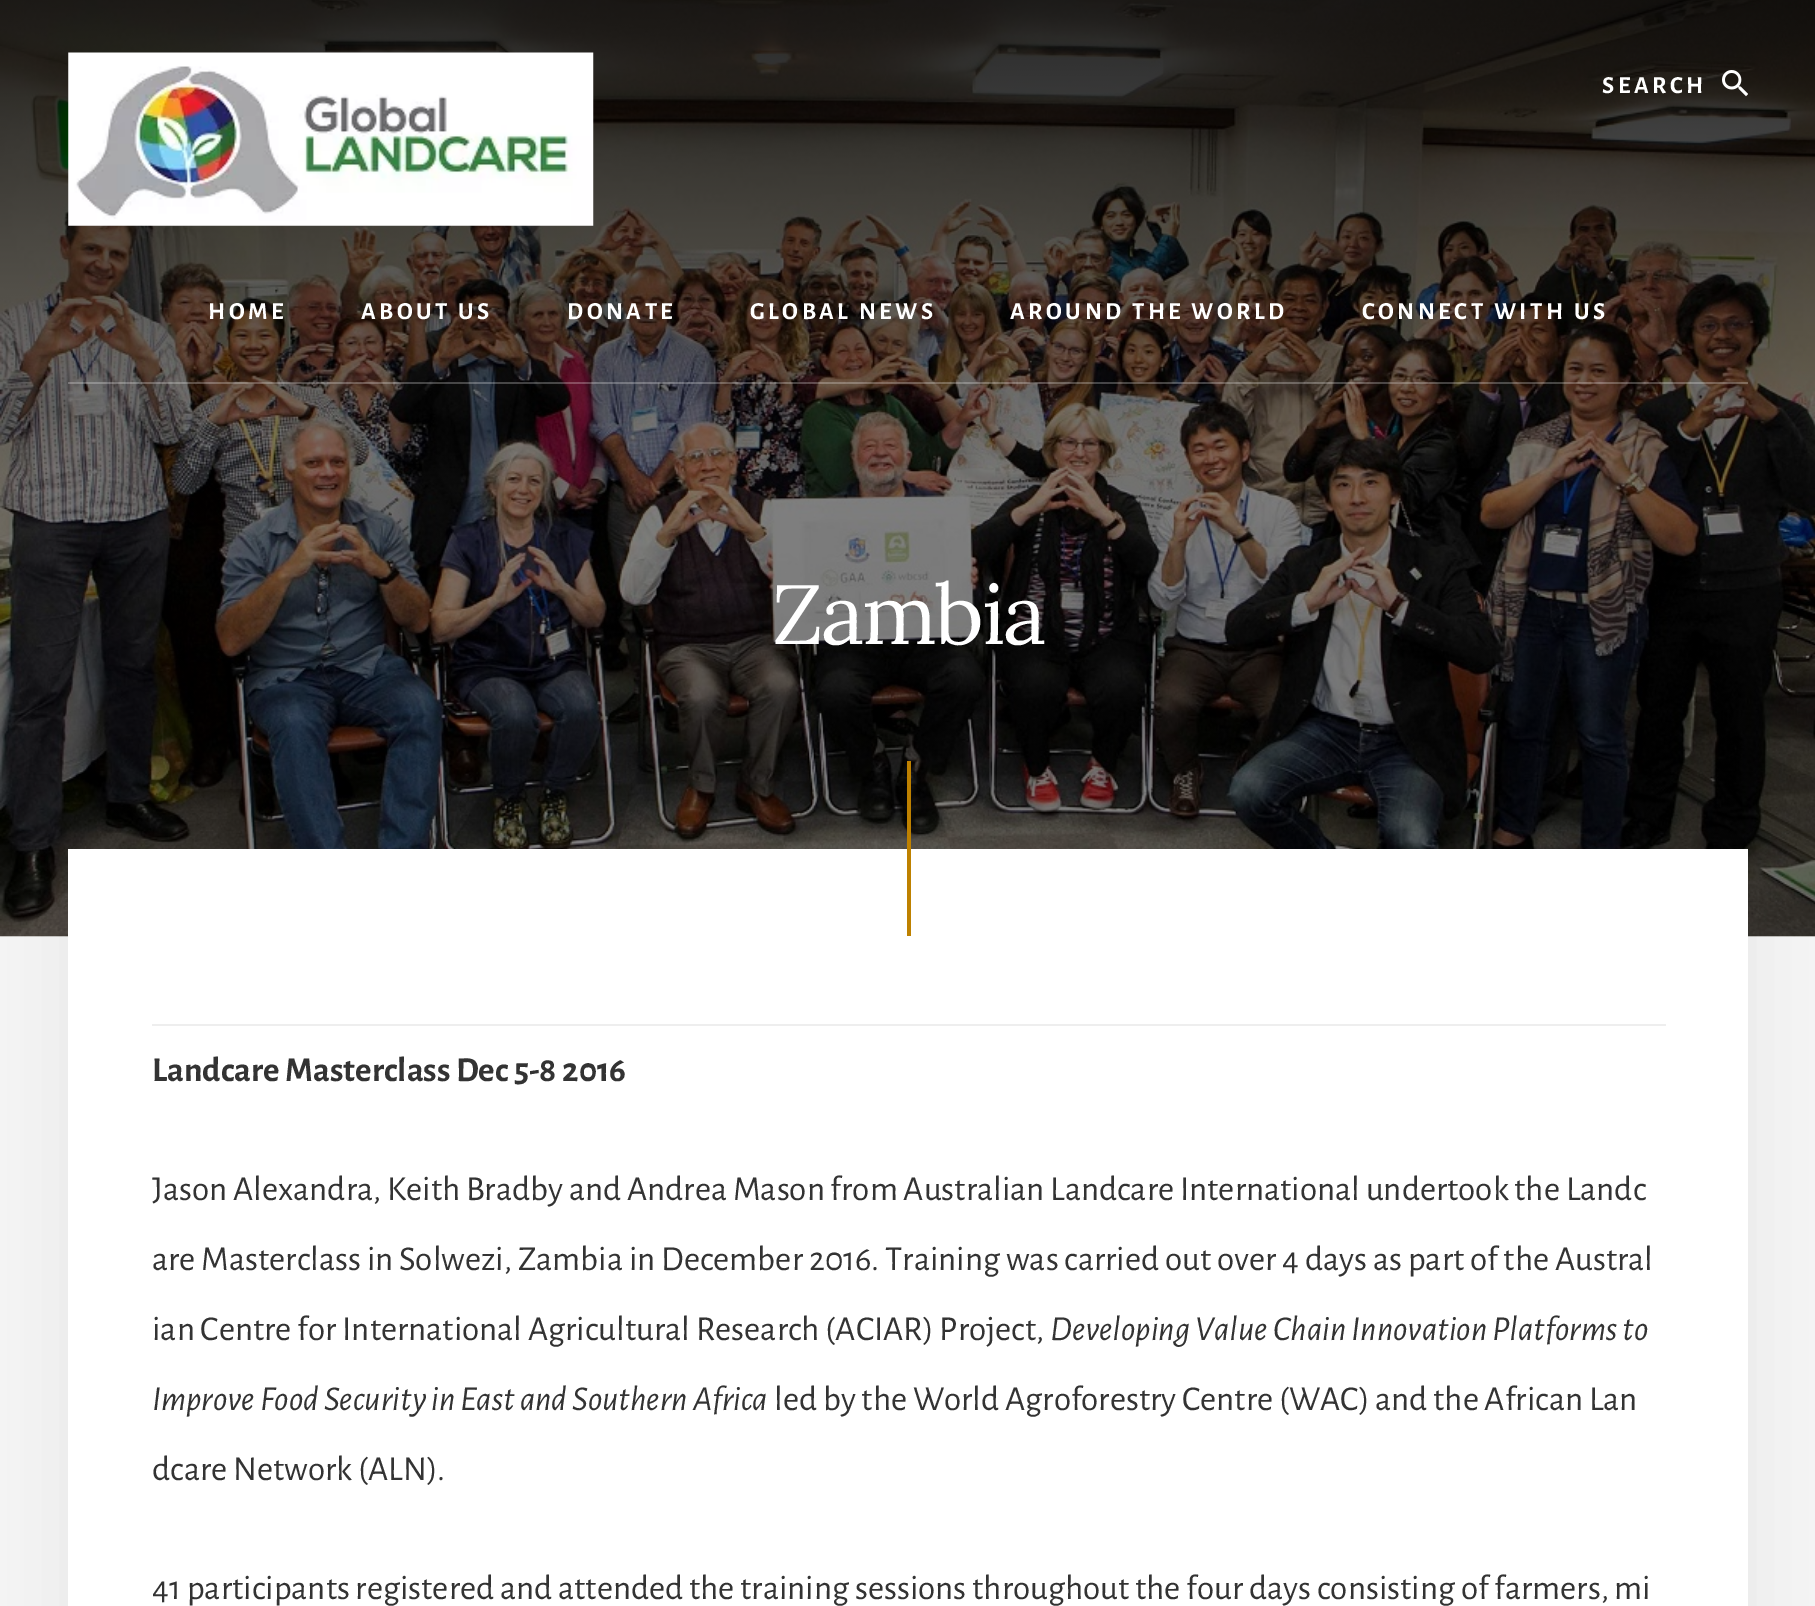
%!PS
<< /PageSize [1815 1606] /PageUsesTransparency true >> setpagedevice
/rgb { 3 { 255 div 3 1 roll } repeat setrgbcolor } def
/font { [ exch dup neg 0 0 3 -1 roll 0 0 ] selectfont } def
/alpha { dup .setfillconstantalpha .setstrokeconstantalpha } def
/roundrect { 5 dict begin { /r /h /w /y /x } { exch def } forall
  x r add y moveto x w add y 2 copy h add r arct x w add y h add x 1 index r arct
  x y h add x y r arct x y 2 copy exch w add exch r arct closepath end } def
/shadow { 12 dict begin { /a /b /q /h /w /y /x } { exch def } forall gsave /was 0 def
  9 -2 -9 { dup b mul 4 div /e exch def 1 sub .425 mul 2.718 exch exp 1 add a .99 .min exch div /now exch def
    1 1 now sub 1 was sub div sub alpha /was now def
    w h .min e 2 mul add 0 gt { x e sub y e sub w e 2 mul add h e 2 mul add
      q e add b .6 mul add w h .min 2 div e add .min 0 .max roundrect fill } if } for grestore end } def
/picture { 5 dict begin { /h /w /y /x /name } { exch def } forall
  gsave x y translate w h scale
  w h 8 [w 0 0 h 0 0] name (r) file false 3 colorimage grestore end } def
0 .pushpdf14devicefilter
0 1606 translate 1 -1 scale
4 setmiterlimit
244 244 244 rgb
0 0 1815 1606 rectfill
(img/1.rgb) 0 0 1815 937 picture
(img/2.rgb) 68 52 526 174 picture
(img/3.rgb) 1722 70 26 27 picture
0.25 alpha
255 255 255 rgb
68 382 1680 2 rectfill
1 alpha
0 0 0 rgb
68 893 1680 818 0 35 0.05 shadow
[
  [68 849 1680 757 255 255 255]
  [907 761 4 175 190 129 0]
  [152 1024 1514 2 238 238 238]
] { aload pop rgb rectfill } forall
/AlegreyaSans-Bold 24.5 font
255 255 255 rgb
1602 93 moveto 3.5 0 (SEARCH) ashow
208 319 moveto 3.5 0 (HOME) ashow
361 319 moveto 3.5 0 (ABOUT US) ashow
567 319 moveto 3.5 0 (DONATE) ashow
750 319 moveto 3.5 0 (GLOBAL NEWS) ashow
1010 319 moveto 3.5 0 (AROUND THE WORLD) ashow
1362 319 moveto 3.5 0 (CONNECT WITH US) ashow
/Lora-Regular 84 font
772 644 moveto -2.25 0 (Zambia) ashow
/AlegreyaSans-Bold 35 font
51 51 51 rgb
152 1081 moveto (Landcare Masterclass Dec 5-8 2016) show
/AlegreyaSans-Regular 35 font
[
  [(Jason Alexandra, Keith Bradby and Andrea Mason from Australian Landcare International undertook the Landc) 152 1200]
  [(are Masterclass in Solwezi, Zambia in December 2016. Training was carried out over 4 days as part of the Austral) 152 1270]
  [(ian Centre for International Agricultural Research \(ACIAR\) Project,) 152 1340]
] { aload pop moveto show } forall
/AlegreyaSans-Italic 35 font
1050 1340 moveto (Developing Value Chain Innovation Platforms to) show
152 1410 moveto (Improve Food Security in East and Southern Africa) show
/AlegreyaSans-Regular 35 font
[
  [(led by the World Agroforestry Centre \(WAC\) and the African Lan) 774 1410]
  [(dcare Network \(ALN\).) 152 1480]
  [(41 participants registered and attended the training sessions throughout the four days consisting of farmers, mi) 152 1599]
] { aload pop moveto show } forall
.poppdf14devicefilter showpage
